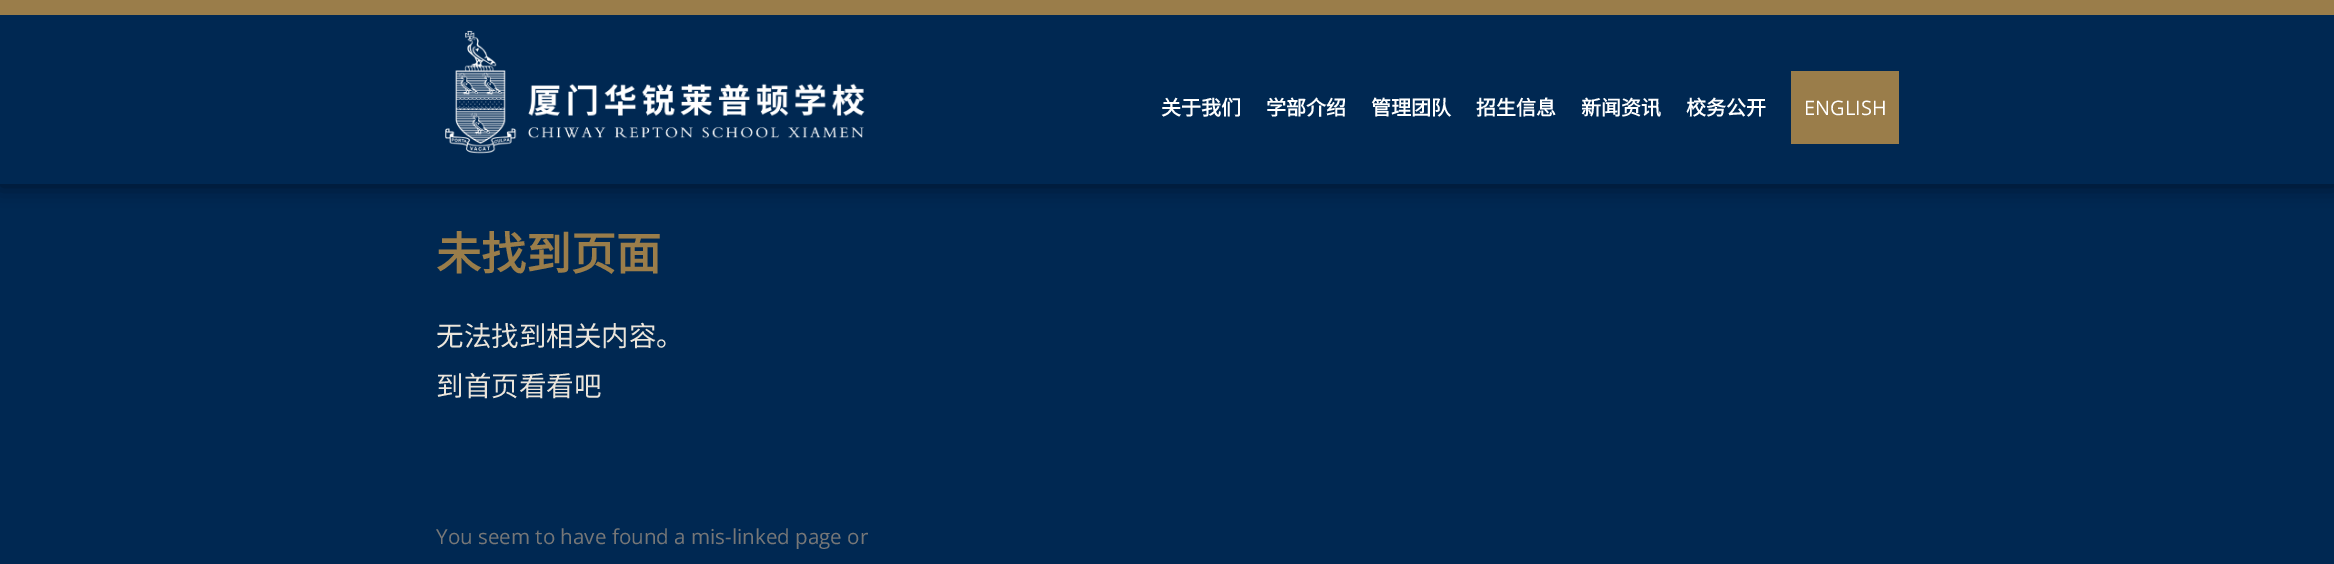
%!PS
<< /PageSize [2334 564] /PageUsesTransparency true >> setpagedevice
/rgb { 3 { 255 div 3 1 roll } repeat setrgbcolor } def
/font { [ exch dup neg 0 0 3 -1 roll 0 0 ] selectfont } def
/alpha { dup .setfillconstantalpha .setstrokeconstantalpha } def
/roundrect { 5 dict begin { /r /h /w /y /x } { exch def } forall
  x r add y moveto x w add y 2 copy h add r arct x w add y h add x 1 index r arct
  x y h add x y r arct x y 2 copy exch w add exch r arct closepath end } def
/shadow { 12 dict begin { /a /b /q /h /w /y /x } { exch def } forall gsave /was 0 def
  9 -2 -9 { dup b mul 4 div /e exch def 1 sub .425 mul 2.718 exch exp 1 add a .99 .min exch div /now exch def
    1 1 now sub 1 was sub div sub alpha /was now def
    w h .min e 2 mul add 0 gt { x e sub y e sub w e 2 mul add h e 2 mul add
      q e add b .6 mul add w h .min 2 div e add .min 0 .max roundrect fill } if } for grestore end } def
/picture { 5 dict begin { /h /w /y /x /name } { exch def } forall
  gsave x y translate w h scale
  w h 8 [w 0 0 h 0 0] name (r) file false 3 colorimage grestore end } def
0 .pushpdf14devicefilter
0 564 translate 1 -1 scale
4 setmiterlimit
0 40 82 rgb
0 0 2334 564 rectfill
0 0 0 rgb
0 3 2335 183 0 10 0.5 shadow
0 40 82 rgb
0 15 2334 169 rectfill
154 125 74 rgb
0 0 2334 15 rectfill
(img/1.rgb) 445 30 420 124 picture
1791 71 108 73 rectfill
/NotoSansCJKSC-Bold 20 font
255 255 255 rgb
[
  [(关于我们) 1161 115]
  [(学部介绍) 1266 115]
  [(管理团队) 1371 115]
  [(招生信息) 1476 115]
  [(新闻资讯) 1581 115]
  [(校务公开) 1686 115]
] { aload pop moveto show } forall
/OpenSans-Regular 20 font
1804 115 moveto (ENGLISH) show
/NotoSansCJKSC-Bold 45 font
154 125 74 rgb
436 270 moveto (未找到页面) show
/NotoSansCJKSC-Regular 27.5 font
235 229 219 rgb
436 346 moveto (无法找到相关内容。) show
436 396 moveto (到首页看看吧) show
/OpenSans-Regular 20.6 font
119 119 119 rgb
436 544 moveto (You seem to have found a mis-linked page or) show
.poppdf14devicefilter showpage
